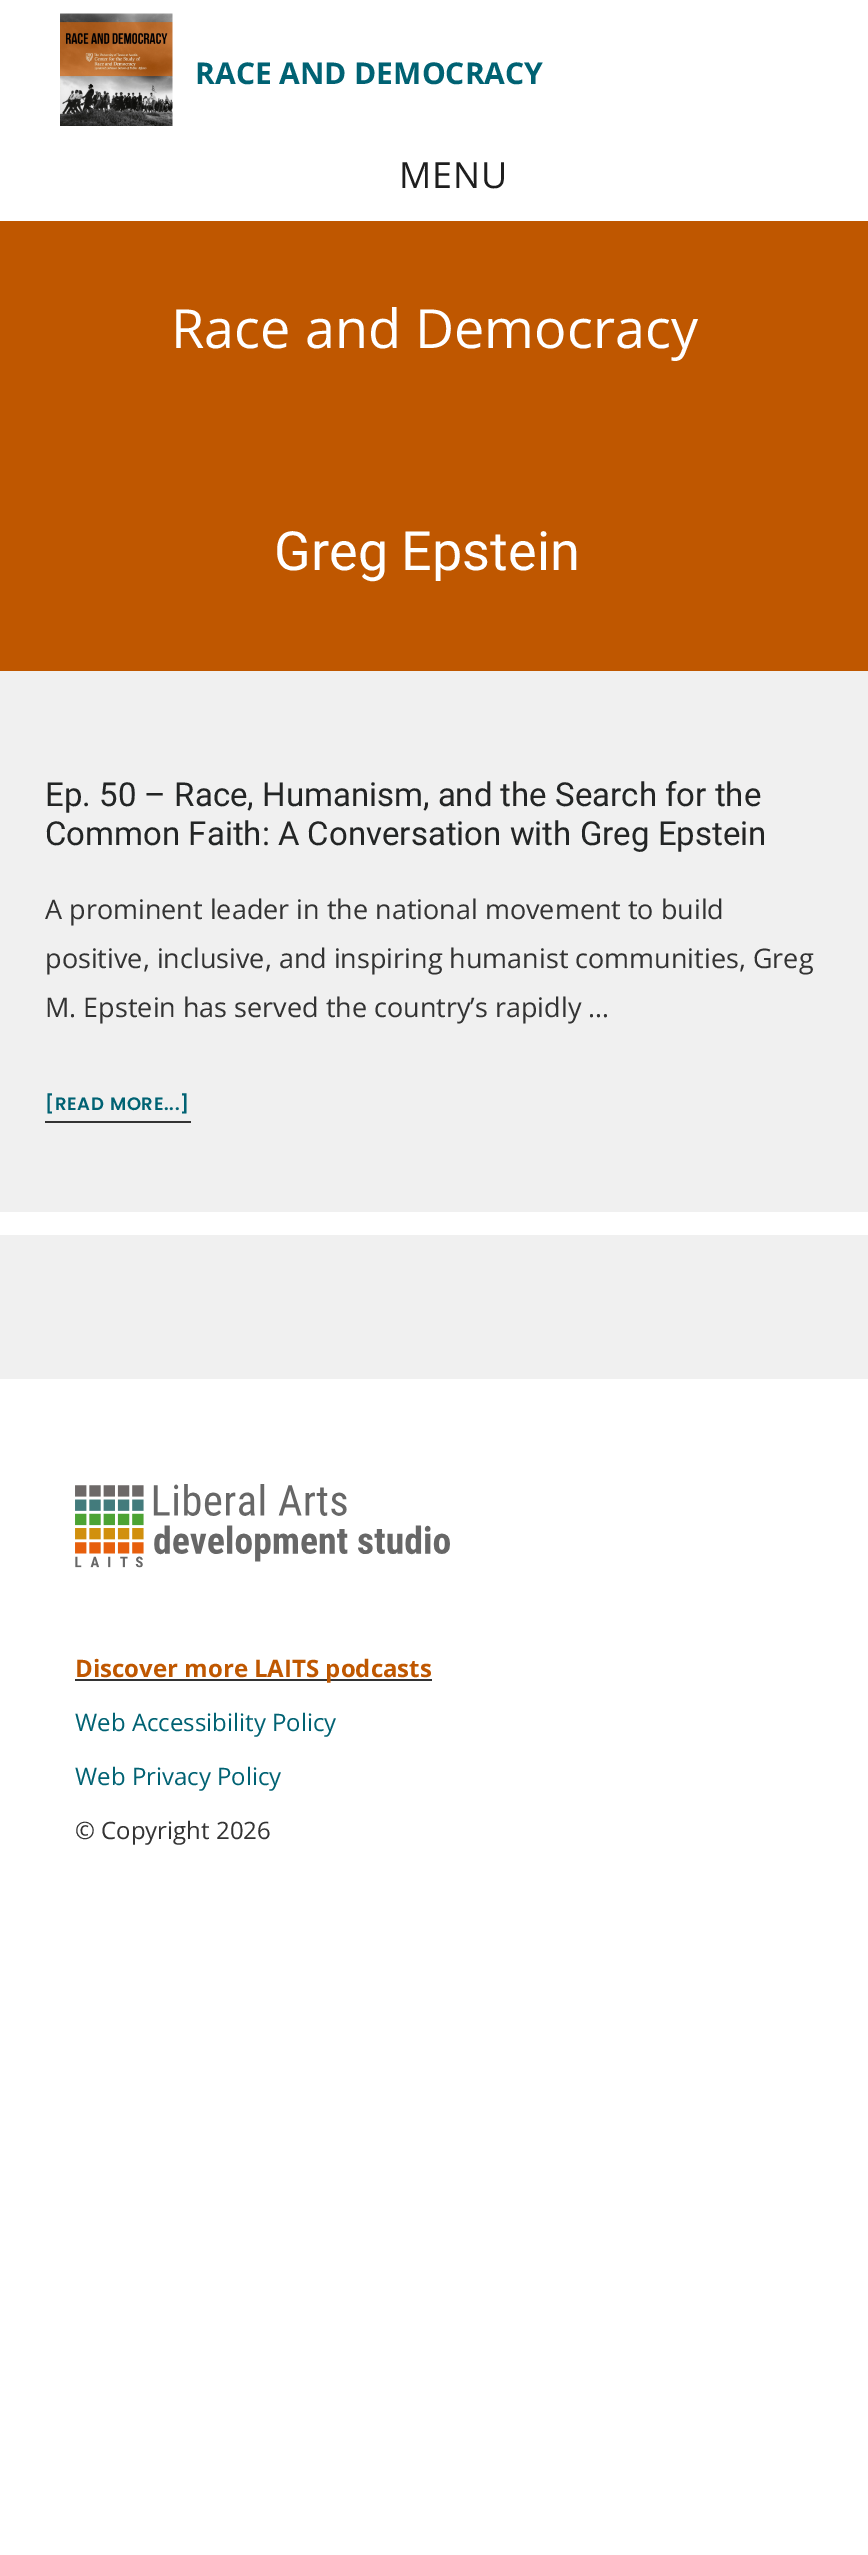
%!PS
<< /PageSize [868 2555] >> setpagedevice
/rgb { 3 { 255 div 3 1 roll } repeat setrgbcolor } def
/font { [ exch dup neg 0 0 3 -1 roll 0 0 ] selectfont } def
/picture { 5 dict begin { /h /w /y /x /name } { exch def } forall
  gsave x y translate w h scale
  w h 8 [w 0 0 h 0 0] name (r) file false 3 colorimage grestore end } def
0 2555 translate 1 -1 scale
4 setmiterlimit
255 255 255 rgb
0 0 868 2555 rectfill
(img/1.rgb) 60 13 113 113 picture
[
  [0 221 868 450 191 87 0]
  [0 671 868 708 240 240 240]
  [0 1212 868 23 255 255 255]
  [45 1121 146 2 51 51 51]
] { aload pop rgb rectfill } forall
(img/2.rgb) 75 1484 375 84 picture
75 1679 357 2 rectfill
/OpenSans-Bold 30 font
0 98 115 rgb
195 84 moveto (RACE AND DEMOCRACY) show
/OpenSans-Regular 36 font
30 30 30 rgb
399 188 moveto 0.75 0 (MENU) ashow
/OpenSans-Regular 54 font
255 255 255 rgb
171 348 moveto (Race and Democracy) show
/Roboto-Regular 54 font
274 570 moveto (Greg Epstein) show
/Roboto-Regular 33 font
35 37 37 rgb
45 806 moveto (Ep. 50 – Race, Humanism, and the Search for the) show
45 845 moveto (Common Faith: A Conversation with Greg Epstein) show
/OpenSans-Regular 27 font
51 51 51 rgb
[
  [(A prominent leader in the national movement to build) 45 919]
  [(positive, inclusive, and inspiring humanist communities, Greg) 45 968]
  [(M. Epstein has served the country’s rapidly …) 45 1017]
] { aload pop moveto show } forall
/Poppins-SemiBold 18 font
0 98 115 rgb
45 1110 moveto 0.75 0 ([READ MORE...]) ashow
/OpenSans-Bold 24 font
191 87 0 rgb
75 1677 moveto (Discover more LAITS podcasts) show
/OpenSans-Regular 24 font
0 98 115 rgb
75 1731 moveto (Web Accessibility Policy) show
75 1785 moveto (Web Privacy Policy) show
51 51 51 rgb
75 1839 moveto (© Copyright 2026) show
showpage
